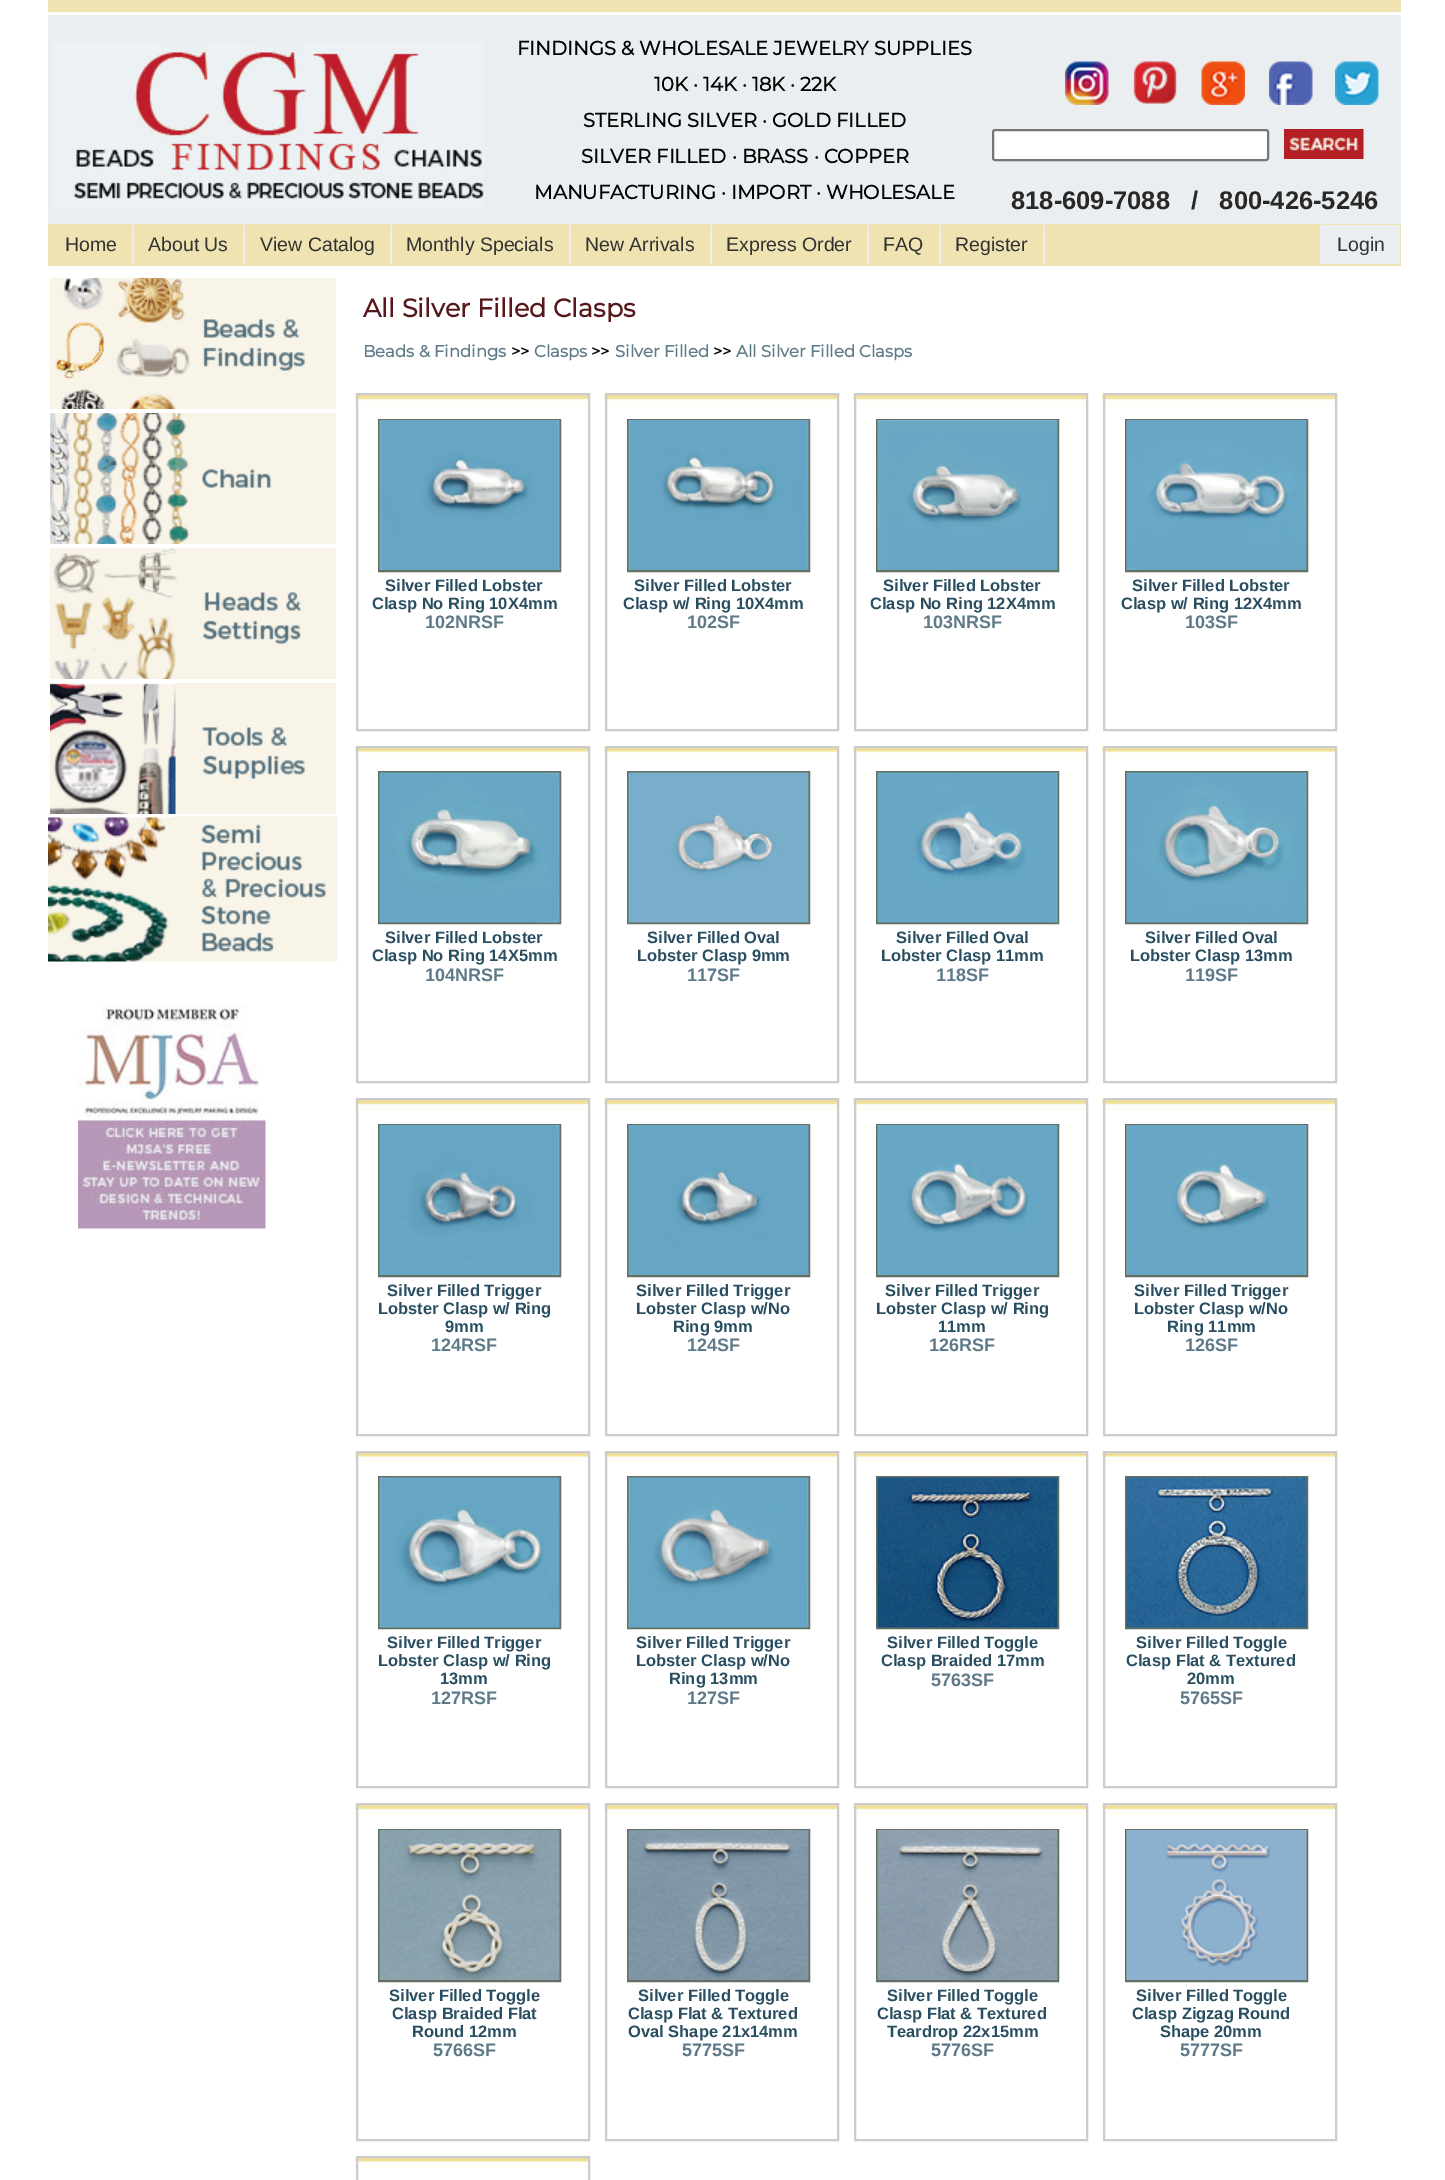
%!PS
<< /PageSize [1445 2180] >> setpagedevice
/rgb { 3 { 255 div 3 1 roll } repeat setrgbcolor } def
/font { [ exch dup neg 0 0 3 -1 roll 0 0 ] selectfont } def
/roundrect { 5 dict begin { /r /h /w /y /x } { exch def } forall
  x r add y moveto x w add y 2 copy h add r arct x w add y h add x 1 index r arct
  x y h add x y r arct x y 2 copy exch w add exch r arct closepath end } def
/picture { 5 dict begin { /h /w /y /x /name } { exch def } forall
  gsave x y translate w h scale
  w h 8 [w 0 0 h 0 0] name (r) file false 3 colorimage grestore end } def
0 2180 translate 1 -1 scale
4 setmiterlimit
255 255 255 rgb
0 0 1445 2180 rectfill
238 227 177 rgb
48 0 1353 12 rectfill
234 238 240 rgb
48 15 1353 209 rectfill
(img/1.rgb) 53 42 431 165 picture
(img/2.rgb) 1065 61 44 44 picture
(img/3.rgb) 1133 61 44 43 picture
(img/4.rgb) 1201 61 44 44 picture
(img/5.rgb) 1269 61 44 44 picture
(img/6.rgb) 1335 61 44 44 picture
255 255 255 rgb
993 130 275 30 2 roundrect gsave fill grestore
118 118 118 rgb
2 setlinewidth
stroke
(img/7.rgb) 1284 129 80 30 picture
[
  [48 224 1353 42 238 227 177]
  [132 225 2 39 234 238 240]
  [243 225 2 39 234 238 240]
  [390 225 2 39 234 238 240]
  [569 225 2 39 234 238 240]
  [710 225 2 39 234 238 240]
  [867 225 2 39 234 238 240]
  [939 225 2 39 234 238 240]
  [1043 225 2 39 234 238 240]
  [1320 225 80 39 234 238 240]
  [1320 224 2 1 234 238 240]
] { aload pop rgb rectfill } forall
(img/8.rgb) 50 278 286 131 picture
(img/9.rgb) 50 413 286 131 picture
(img/10.rgb) 50 548 286 131 picture
(img/11.rgb) 50 683 286 131 picture
(img/12.rgb) 48 816 290 146 picture
(img/13.rgb) 78 1003 188 226 picture
(img/14.rgb) 355 394 233 12 picture
204 204 204 rgb
357 394 232 336 rectstroke
99 111 98 rgb
379 420 181 151 rectstroke
(img/15.rgb) 379 420 181 150 picture
(img/14.rgb) 604 394 233 12 picture
204 204 204 rgb
606 394 232 336 rectstroke
99 111 98 rgb
628 420 181 151 rectstroke
(img/16.rgb) 628 420 181 150 picture
(img/17.rgb) 853 394 233 12 picture
204 204 204 rgb
855 394 232 336 rectstroke
99 111 98 rgb
877 420 181 151 rectstroke
(img/18.rgb) 877 420 181 150 picture
(img/17.rgb) 1102 394 233 12 picture
204 204 204 rgb
1104 394 232 336 rectstroke
99 111 98 rgb
1126 420 181 151 rectstroke
(img/19.rgb) 1126 420 181 150 picture
(img/20.rgb) 355 747 233 12 picture
204 204 204 rgb
357 747 232 335 rectstroke
99 111 98 rgb
379 772 181 151 rectstroke
(img/21.rgb) 379 772 181 151 picture
(img/20.rgb) 604 747 233 12 picture
204 204 204 rgb
606 747 232 335 rectstroke
99 111 98 rgb
628 772 181 151 rectstroke
(img/22.rgb) 628 772 181 151 picture
(img/23.rgb) 853 747 233 12 picture
204 204 204 rgb
855 747 232 335 rectstroke
99 111 98 rgb
877 772 181 151 rectstroke
(img/24.rgb) 877 772 181 151 picture
(img/23.rgb) 1102 747 233 12 picture
204 204 204 rgb
1104 747 232 335 rectstroke
99 111 98 rgb
1126 772 181 151 rectstroke
(img/25.rgb) 1126 772 181 151 picture
(img/14.rgb) 355 1099 233 12 picture
204 204 204 rgb
357 1099 232 336 rectstroke
99 111 98 rgb
379 1125 181 151 rectstroke
(img/26.rgb) 379 1125 181 150 picture
(img/14.rgb) 604 1099 233 12 picture
204 204 204 rgb
606 1099 232 336 rectstroke
99 111 98 rgb
628 1125 181 151 rectstroke
(img/27.rgb) 628 1125 181 150 picture
(img/17.rgb) 853 1099 233 12 picture
204 204 204 rgb
855 1099 232 336 rectstroke
99 111 98 rgb
877 1125 181 151 rectstroke
(img/28.rgb) 877 1125 181 150 picture
(img/17.rgb) 1102 1099 233 12 picture
204 204 204 rgb
1104 1099 232 336 rectstroke
99 111 98 rgb
1126 1125 181 151 rectstroke
(img/29.rgb) 1126 1125 181 150 picture
(img/20.rgb) 355 1452 233 12 picture
204 204 204 rgb
357 1452 232 335 rectstroke
99 111 98 rgb
379 1477 181 151 rectstroke
(img/30.rgb) 379 1477 181 151 picture
(img/20.rgb) 604 1452 233 12 picture
204 204 204 rgb
606 1452 232 335 rectstroke
99 111 98 rgb
628 1477 181 151 rectstroke
(img/31.rgb) 628 1477 181 151 picture
(img/23.rgb) 853 1452 233 12 picture
204 204 204 rgb
855 1452 232 335 rectstroke
99 111 98 rgb
877 1477 181 151 rectstroke
(img/32.rgb) 877 1477 181 151 picture
(img/23.rgb) 1102 1452 233 12 picture
204 204 204 rgb
1104 1452 232 335 rectstroke
99 111 98 rgb
1126 1477 181 151 rectstroke
(img/33.rgb) 1126 1477 181 151 picture
(img/14.rgb) 355 1804 233 12 picture
204 204 204 rgb
357 1804 232 336 rectstroke
99 111 98 rgb
379 1830 181 151 rectstroke
(img/34.rgb) 379 1830 181 150 picture
(img/14.rgb) 604 1804 233 12 picture
204 204 204 rgb
606 1804 232 336 rectstroke
99 111 98 rgb
628 1830 181 151 rectstroke
(img/35.rgb) 628 1830 181 150 picture
(img/17.rgb) 853 1804 233 12 picture
204 204 204 rgb
855 1804 232 336 rectstroke
99 111 98 rgb
877 1830 181 151 rectstroke
(img/36.rgb) 877 1830 181 150 picture
(img/17.rgb) 1102 1804 233 12 picture
204 204 204 rgb
1104 1804 232 336 rectstroke
99 111 98 rgb
1126 1830 181 151 rectstroke
(img/37.rgb) 1126 1830 181 150 picture
(img/20.rgb) 355 2157 233 12 picture
204 204 204 rgb
357 2157 232 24 rectstroke
/Montserrat-Bold 19.5 font
0 0 0 rgb
[
  [(FINDINGS & WHOLESALE JEWELRY SUPPLIES) 517 55]
  [(10K · 14K · 18K · 22K) 654 91]
  [(STERLING SILVER · GOLD FILLED) 583 127]
  [(SILVER FILLED · BRASS · COPPER) 581 163]
  [(MANUFACTURING · IMPORT · WHOLESALE) 534 199]
] { aload pop moveto show } forall
/LiberationSans-Bold 25.5 font
40 40 40 rgb
1011 209 moveto (818-609-7088   /   800-426-5246) show
/LiberationSans-Regular 19.5 font
50 50 50 rgb
[
  [(Home) 65 251]
  [(About Us) 148 251]
  [(View Catalog) 260 251]
  [(Monthly Specials) 406 251]
  [(New Arrivals) 585 251]
  [(Express Order) 726 251]
  [(FAQ) 883 251]
  [(Register) 955 251]
  [(Login) 1337 251]
] { aload pop moveto show } forall
/Montserrat-Bold 25.5 font
87 24 27 rgb
363 317 moveto (All Silver Filled Clasps) show
/Montserrat-Bold 16.5 font
94 122 136 rgb
363 357 moveto (Beads & Findings) show
0 0 0 rgb
511 357 moveto (>>) show
94 122 136 rgb
534 357 moveto (Clasps) show
0 0 0 rgb
591 357 moveto (>>) show
94 122 136 rgb
615 357 moveto (Silver Filled) show
0 0 0 rgb
713 357 moveto (>>) show
94 122 136 rgb
736 357 moveto (All Silver Filled Clasps) show
/LiberationSans-Bold 16.5 font
41 78 97 rgb
385 591 moveto (Silver Filled Lobster) show
372 609 moveto (Clasp No Ring 10X4mm) show
/LiberationSans-Bold 18 font
94 122 136 rgb
425 628 moveto (102NRSF) show
/LiberationSans-Bold 16.5 font
41 78 97 rgb
634 591 moveto (Silver Filled Lobster) show
623 609 moveto (Clasp w/ Ring 10X4mm) show
/LiberationSans-Bold 18 font
94 122 136 rgb
687 628 moveto (102SF) show
/LiberationSans-Bold 16.5 font
41 78 97 rgb
883 591 moveto (Silver Filled Lobster) show
870 609 moveto (Clasp No Ring 12X4mm) show
/LiberationSans-Bold 18 font
94 122 136 rgb
923 628 moveto (103NRSF) show
/LiberationSans-Bold 16.5 font
41 78 97 rgb
1132 591 moveto (Silver Filled Lobster) show
1121 609 moveto (Clasp w/ Ring 12X4mm) show
/LiberationSans-Bold 18 font
94 122 136 rgb
1185 628 moveto (103SF) show
/LiberationSans-Bold 16.5 font
41 78 97 rgb
385 943 moveto (Silver Filled Lobster) show
372 961 moveto (Clasp No Ring 14X5mm) show
/LiberationSans-Bold 18 font
94 122 136 rgb
425 981 moveto (104NRSF) show
/LiberationSans-Bold 16.5 font
41 78 97 rgb
647 943 moveto (Silver Filled Oval) show
637 961 moveto (Lobster Clasp 9mm) show
/LiberationSans-Bold 18 font
94 122 136 rgb
687 981 moveto (117SF) show
/LiberationSans-Bold 16.5 font
41 78 97 rgb
896 943 moveto (Silver Filled Oval) show
881 961 moveto (Lobster Clasp 11mm) show
/LiberationSans-Bold 18 font
94 122 136 rgb
936 981 moveto (118SF) show
/LiberationSans-Bold 16.5 font
41 78 97 rgb
1145 943 moveto (Silver Filled Oval) show
1130 961 moveto (Lobster Clasp 13mm) show
/LiberationSans-Bold 18 font
94 122 136 rgb
1185 981 moveto (119SF) show
/LiberationSans-Bold 16.5 font
41 78 97 rgb
[
  [(Silver Filled Trigger) 387 1296]
  [(Lobster Clasp w/ Ring) 378 1314]
  [(9mm) 445 1332]
] { aload pop moveto show } forall
/LiberationSans-Bold 18 font
94 122 136 rgb
431 1351 moveto (124RSF) show
/LiberationSans-Bold 16.5 font
41 78 97 rgb
[
  [(Silver Filled Trigger) 636 1296]
  [(Lobster Clasp w/No) 636 1314]
  [(Ring 9mm) 673 1332]
] { aload pop moveto show } forall
/LiberationSans-Bold 18 font
94 122 136 rgb
687 1351 moveto (124SF) show
/LiberationSans-Bold 16.5 font
41 78 97 rgb
[
  [(Silver Filled Trigger) 885 1296]
  [(Lobster Clasp w/ Ring) 876 1314]
  [(11mm) 938 1332]
] { aload pop moveto show } forall
/LiberationSans-Bold 18 font
94 122 136 rgb
929 1351 moveto (126RSF) show
/LiberationSans-Bold 16.5 font
41 78 97 rgb
[
  [(Silver Filled Trigger) 1134 1296]
  [(Lobster Clasp w/No) 1134 1314]
  [(Ring 11mm) 1167 1332]
] { aload pop moveto show } forall
/LiberationSans-Bold 18 font
94 122 136 rgb
1185 1351 moveto (126SF) show
/LiberationSans-Bold 16.5 font
41 78 97 rgb
[
  [(Silver Filled Trigger) 387 1648]
  [(Lobster Clasp w/ Ring) 378 1666]
  [(13mm) 440 1684]
] { aload pop moveto show } forall
/LiberationSans-Bold 18 font
94 122 136 rgb
431 1704 moveto (127RSF) show
/LiberationSans-Bold 16.5 font
41 78 97 rgb
[
  [(Silver Filled Trigger) 636 1648]
  [(Lobster Clasp w/No) 636 1666]
  [(Ring 13mm) 669 1684]
] { aload pop moveto show } forall
/LiberationSans-Bold 18 font
94 122 136 rgb
687 1704 moveto (127SF) show
/LiberationSans-Bold 16.5 font
41 78 97 rgb
887 1648 moveto (Silver Filled Toggle) show
881 1666 moveto (Clasp Braided 17mm) show
/LiberationSans-Bold 18 font
94 122 136 rgb
931 1686 moveto (5763SF) show
/LiberationSans-Bold 16.5 font
41 78 97 rgb
[
  [(Silver Filled Toggle) 1136 1648]
  [(Clasp Flat & Textured) 1126 1666]
  [(20mm) 1187 1684]
] { aload pop moveto show } forall
/LiberationSans-Bold 18 font
94 122 136 rgb
1180 1704 moveto (5765SF) show
/LiberationSans-Bold 16.5 font
41 78 97 rgb
[
  [(Silver Filled Toggle) 389 2001]
  [(Clasp Braided Flat) 392 2019]
  [(Round 12mm) 412 2037]
] { aload pop moveto show } forall
/LiberationSans-Bold 18 font
94 122 136 rgb
433 2056 moveto (5766SF) show
/LiberationSans-Bold 16.5 font
41 78 97 rgb
[
  [(Silver Filled Toggle) 638 2001]
  [(Clasp Flat & Textured) 628 2019]
  [(Oval Shape 21x14mm) 628 2037]
] { aload pop moveto show } forall
/LiberationSans-Bold 18 font
94 122 136 rgb
682 2056 moveto (5775SF) show
/LiberationSans-Bold 16.5 font
41 78 97 rgb
[
  [(Silver Filled Toggle) 887 2001]
  [(Clasp Flat & Textured) 877 2019]
  [(Teardrop 22x15mm) 887 2037]
] { aload pop moveto show } forall
/LiberationSans-Bold 18 font
94 122 136 rgb
931 2056 moveto (5776SF) show
/LiberationSans-Bold 16.5 font
41 78 97 rgb
[
  [(Silver Filled Toggle) 1136 2001]
  [(Clasp Zigzag Round) 1132 2019]
  [(Shape 20mm) 1160 2037]
] { aload pop moveto show } forall
/LiberationSans-Bold 18 font
94 122 136 rgb
1180 2056 moveto (5777SF) show
showpage
